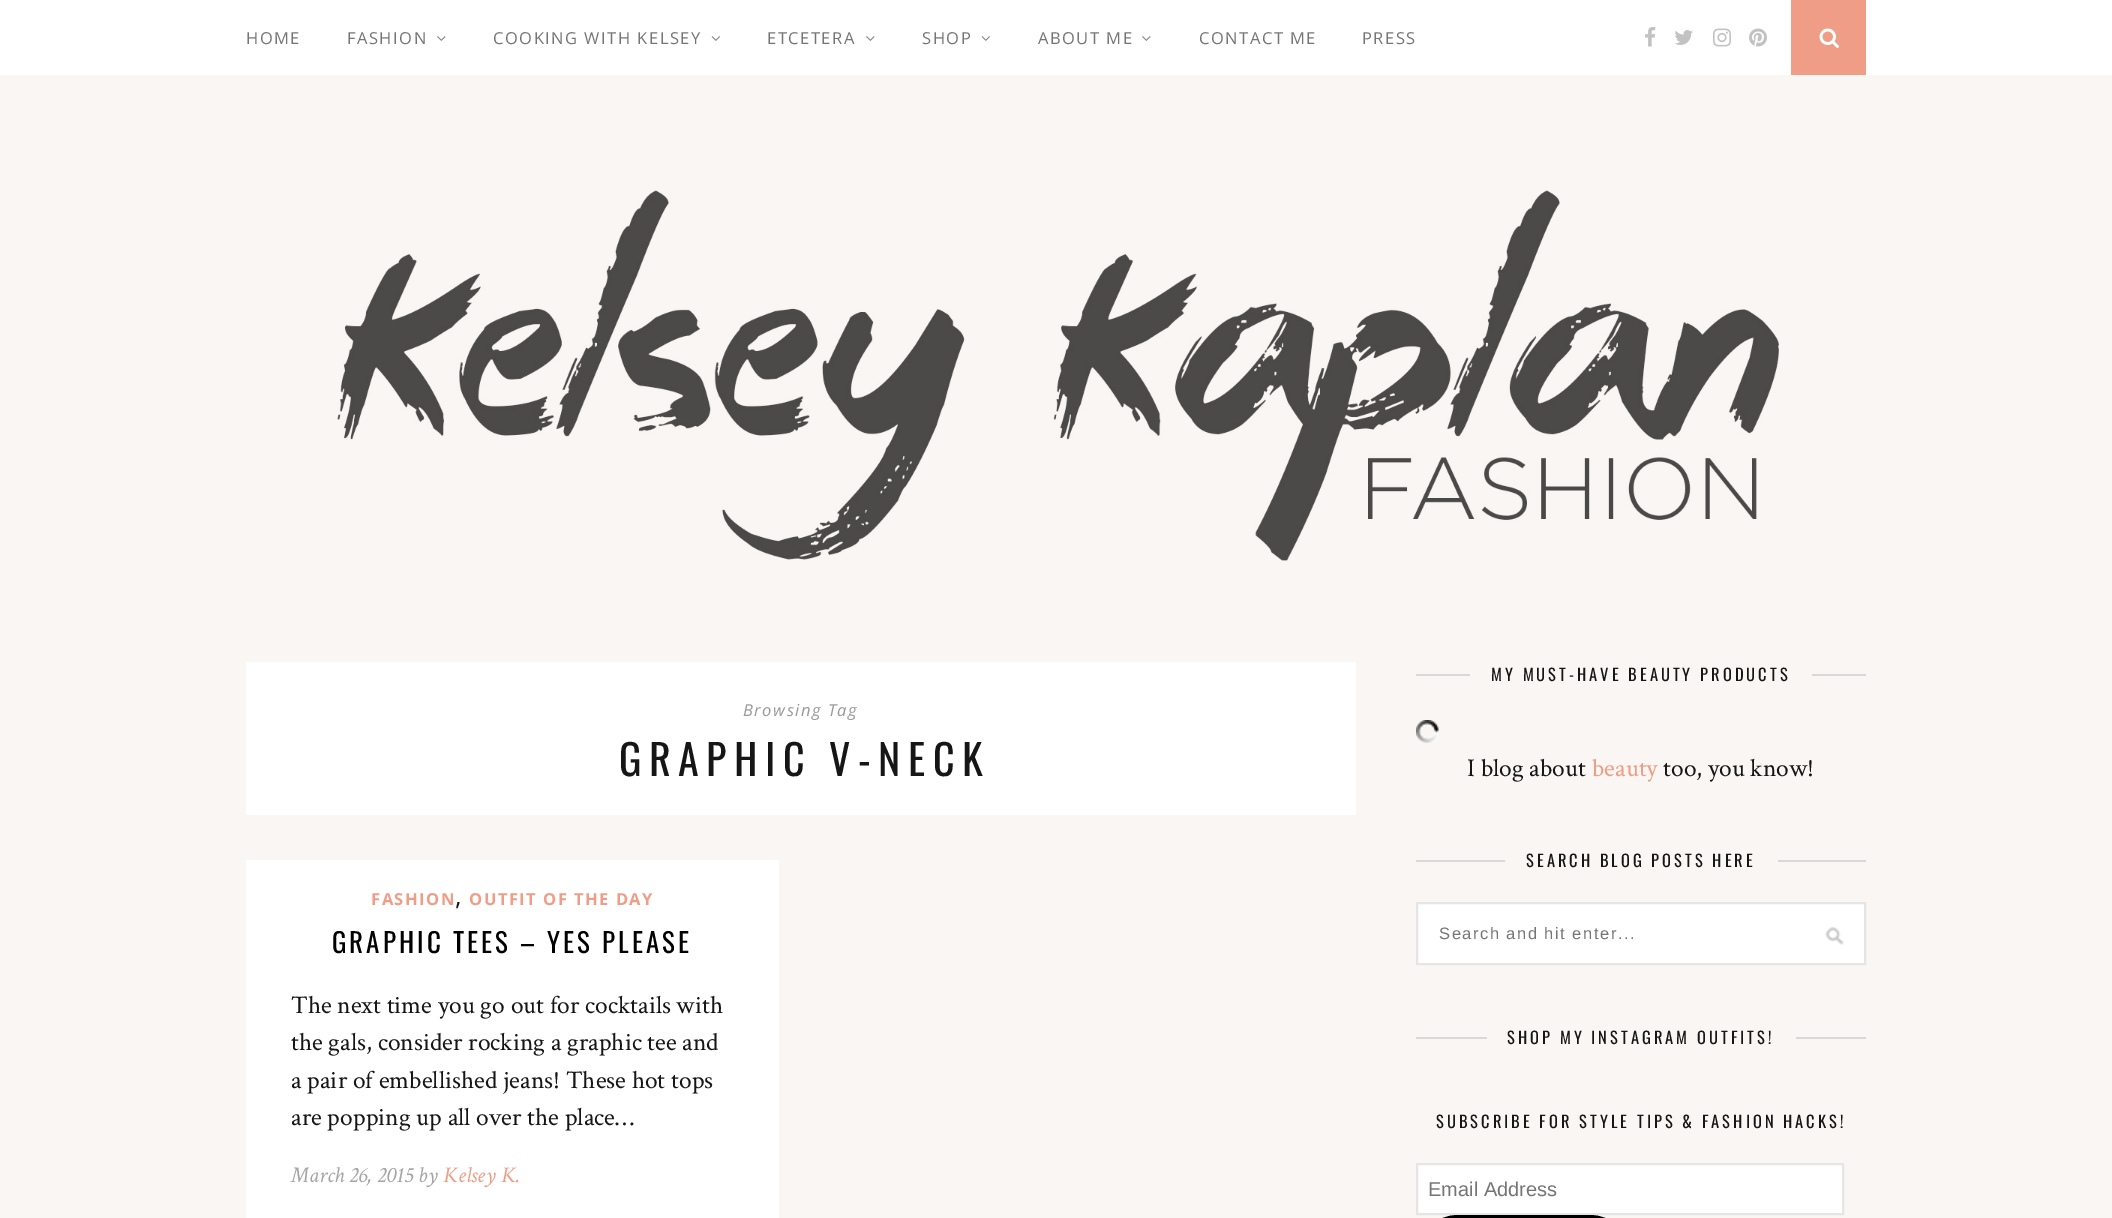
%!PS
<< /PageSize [2112 1218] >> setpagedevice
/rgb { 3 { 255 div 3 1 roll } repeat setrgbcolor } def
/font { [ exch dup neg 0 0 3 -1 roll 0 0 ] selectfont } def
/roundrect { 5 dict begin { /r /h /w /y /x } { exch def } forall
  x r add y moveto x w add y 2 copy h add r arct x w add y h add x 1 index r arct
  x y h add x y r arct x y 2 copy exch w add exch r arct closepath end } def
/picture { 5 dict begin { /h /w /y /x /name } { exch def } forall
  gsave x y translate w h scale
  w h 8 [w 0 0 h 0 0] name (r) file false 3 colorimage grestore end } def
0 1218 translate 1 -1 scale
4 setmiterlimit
250 246 243 rgb
0 0 2112 1218 rectfill
255 255 255 rgb
0 0 2112 75 rectfill
(img/1.rgb) 437 36 9 5 picture
(img/2.rgb) 711 36 9 5 picture
(img/1.rgb) 866 36 9 5 picture
(img/2.rgb) 981 36 9 5 picture
(img/1.rgb) 1142 36 9 5 picture
(img/3.rgb) 1645 27 11 20 picture
(img/4.rgb) 1675 30 18 15 picture
(img/5.rgb) 1713 28 18 19 picture
(img/6.rgb) 1749 28 18 19 picture
239 157 135 rgb
1791 0 75 75 rectfill
(img/7.rgb) 1819 28 20 20 picture
(img/8.rgb) 337 190 1442 371 picture
[
  [246 662 1110 153 255 255 255]
  [246 860 533 358 255 255 255]
  [1416 674 54 2 216 216 216]
  [1812 674 54 2 216 216 216]
] { aload pop rgb rectfill } forall
(img/9.rgb) 1416 720 23 23 picture
[
  [1416 860 89 2 216 216 216]
  [1778 860 88 2 216 216 216]
  [1418 904 446 59 255 255 255]
] { aload pop rgb rectfill } forall
(img/10.rgb) 1825 926 19 19 picture
229 229 229 rgb
2 setlinewidth
1417 903 448 61 rectstroke
216 216 216 rgb
1416 1037 71 2 rectfill
1796 1037 70 2 rectfill
255 255 255 rgb
1417 1164 moveto 1843 1164 lineto 1843 1214 lineto 1417 1214 lineto closepath gsave fill grestore
229 229 229 rgb
stroke
0 0 0 rgb
3 setlinewidth
1417.5 1216.5 213 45 40.5 roundrect stroke
/OpenSans-Regular 16.5 font
117 117 117 rgb
246 44 moveto 1.5 0 (HOME) ashow
347 44 moveto 1.5 0 (FASHION) ashow
493 44 moveto 1.5 0 (COOKING WITH KELSEY) ashow
767 44 moveto 1.5 0 (ETCETERA) ashow
922 44 moveto 1.5 0 (SHOP) ashow
1038 44 moveto 1.5 0 (ABOUT ME) ashow
1199 44 moveto 1.5 0 (CONTACT ME) ashow
1362 44 moveto 1.5 0 (PRESS) ashow
/OpenSans-Italic 16.5 font
153 153 153 rgb
743 716 moveto 1.5 0 (Browsing Tag) ashow
/Oswald-Regular 42 font
22 22 22 rgb
619 776 moveto 7.5 0 (GRAPHIC V-NECK) ashow
/OpenSans-Bold 16.5 font
239 157 135 rgb
371 905 moveto 1.5 0 (FASHION) ashow
/OpenSans-Regular 25.5 font
22 22 22 rgb
455 905 moveto (,) show
/OpenSans-Bold 16.5 font
239 157 135 rgb
469 905 moveto 1.5 0 (OUTFIT OF THE DAY) ashow
/Oswald-Regular 27 font
0 0 0 rgb
332 953 moveto 3 0 (GRAPHIC TEES – YES PLEASE) ashow
/CrimsonText-Regular 25.5 font
22 22 22 rgb
[
  [(The next time you go out for cocktails with) 291 1013]
  [(the gals, consider rocking a graphic tee and) 291 1050]
  [(a pair of embellished jeans! These hot tops) 291 1088]
  [(are popping up all over the place…) 291 1125]
] { aload pop moveto show } forall
/CrimsonText-Italic 22.5 font
165 165 165 rgb
291 1182 moveto (March 26, 2015 by) show
239 157 135 rgb
443 1182 moveto (Kelsey K.) show
/Oswald-Regular 16.5 font
22 22 22 rgb
1491 681 moveto 3 0 (MY MUST-HAVE BEAUTY PRODUCTS) ashow
/CrimsonText-Regular 25.5 font
1467 776 moveto (I blog about) show
239 157 135 rgb
1592 776 moveto (beauty) show
22 22 22 rgb
1663 776 moveto (too, you know!) show
/Oswald-Regular 16.5 font
1526 867 moveto 3 0 (SEARCH BLOG POSTS HERE) ashow
/LiberationSans-Regular 16.5 font
117 117 117 rgb
1439 939 moveto 1.5 0 (Search and hit enter...) ashow
/Oswald-Regular 16.5 font
22 22 22 rgb
1507 1044 moveto 3 0 (SHOP MY INSTAGRAM OUTFITS!) ashow
1436 1128 moveto 3 0 (SUBSCRIBE FOR STYLE TIPS & FASHION HACKS!) ashow
/LiberationSans-Regular 20 font
117 117 117 rgb
1428 1196 moveto (Email Address) show
showpage
